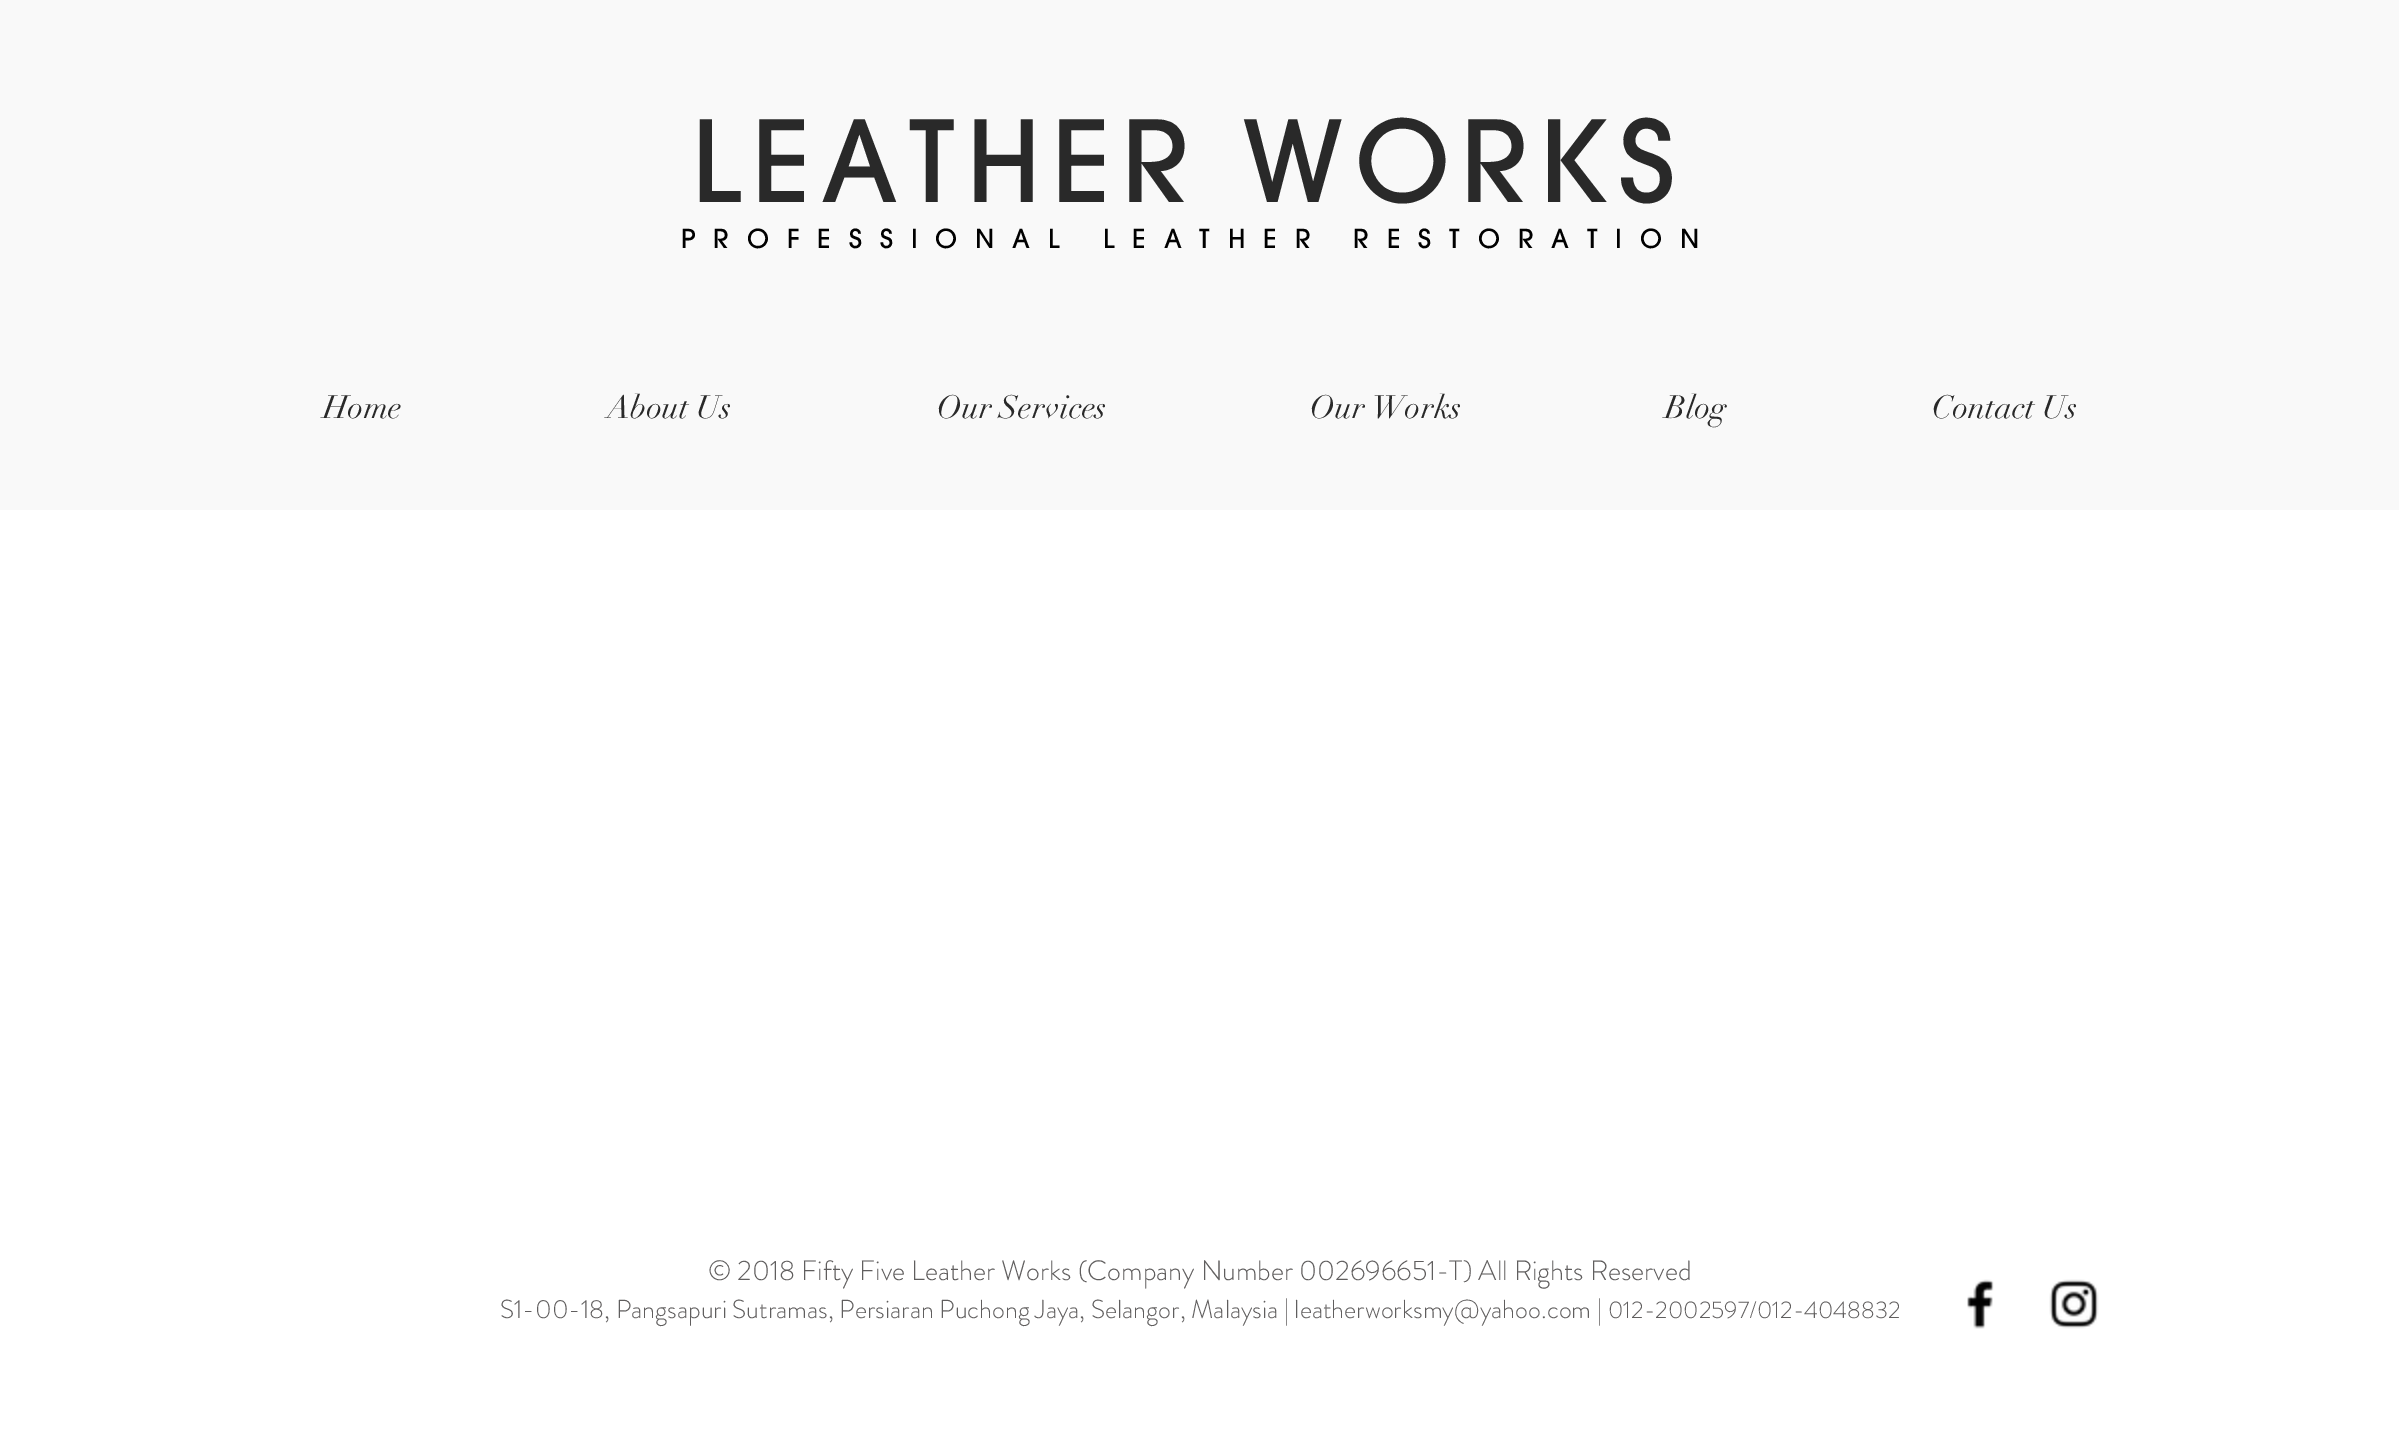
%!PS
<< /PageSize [2399 1439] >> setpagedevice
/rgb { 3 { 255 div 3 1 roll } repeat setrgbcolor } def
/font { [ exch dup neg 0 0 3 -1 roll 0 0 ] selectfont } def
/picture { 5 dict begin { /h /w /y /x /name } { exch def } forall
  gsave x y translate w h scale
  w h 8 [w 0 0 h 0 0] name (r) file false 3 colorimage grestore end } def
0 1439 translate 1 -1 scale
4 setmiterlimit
255 255 255 rgb
0 0 2399 1439 rectfill
249 249 249 rgb
0 0 2399 510 rectfill
(img/1.rgb) 1967 1279 27 50 picture
(img/2.rgb) 2049 1279 50 50 picture
/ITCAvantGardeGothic-Medium 112 font
41 41 41 rgb
691 202 moveto 11.25 0 (LEATHER WORKS) ashow
/ITCAvantGardeGothic-Medium 26 font
0 0 0 rgb
681 248 moveto 17.95 0 (PROFESSIONAL LEATHER RESTORATION) ashow
/didot-Regular 32 font
41 41 41 rgb
[
  [(Home) 323 418]
  [(About Us) 607 418]
  [(Our Services) 937 418]
  [(Our Works) 1310 418]
  [(Blog) 1665 418]
  [(Contact Us) 1932 418]
] { aload pop moveto show } forall
/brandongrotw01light-Light 28 font
96 94 94 rgb
708 1280 moveto (© 2018 Fifty Five Leather Works \(Company Number 002696651-T\) All Rights Reserved) show
/brandongrotw01light-Light 26 font
500 1318 moveto (S1-00-18, Pangsapuri Sutramas, Persiaran Puchong Jaya, Selangor, Malaysia | leatherworksmy@yahoo.com |) show
/brandongrotw01light-Light 24 font
1608 1318 moveto (012-2002597/012-4048832) show
showpage
